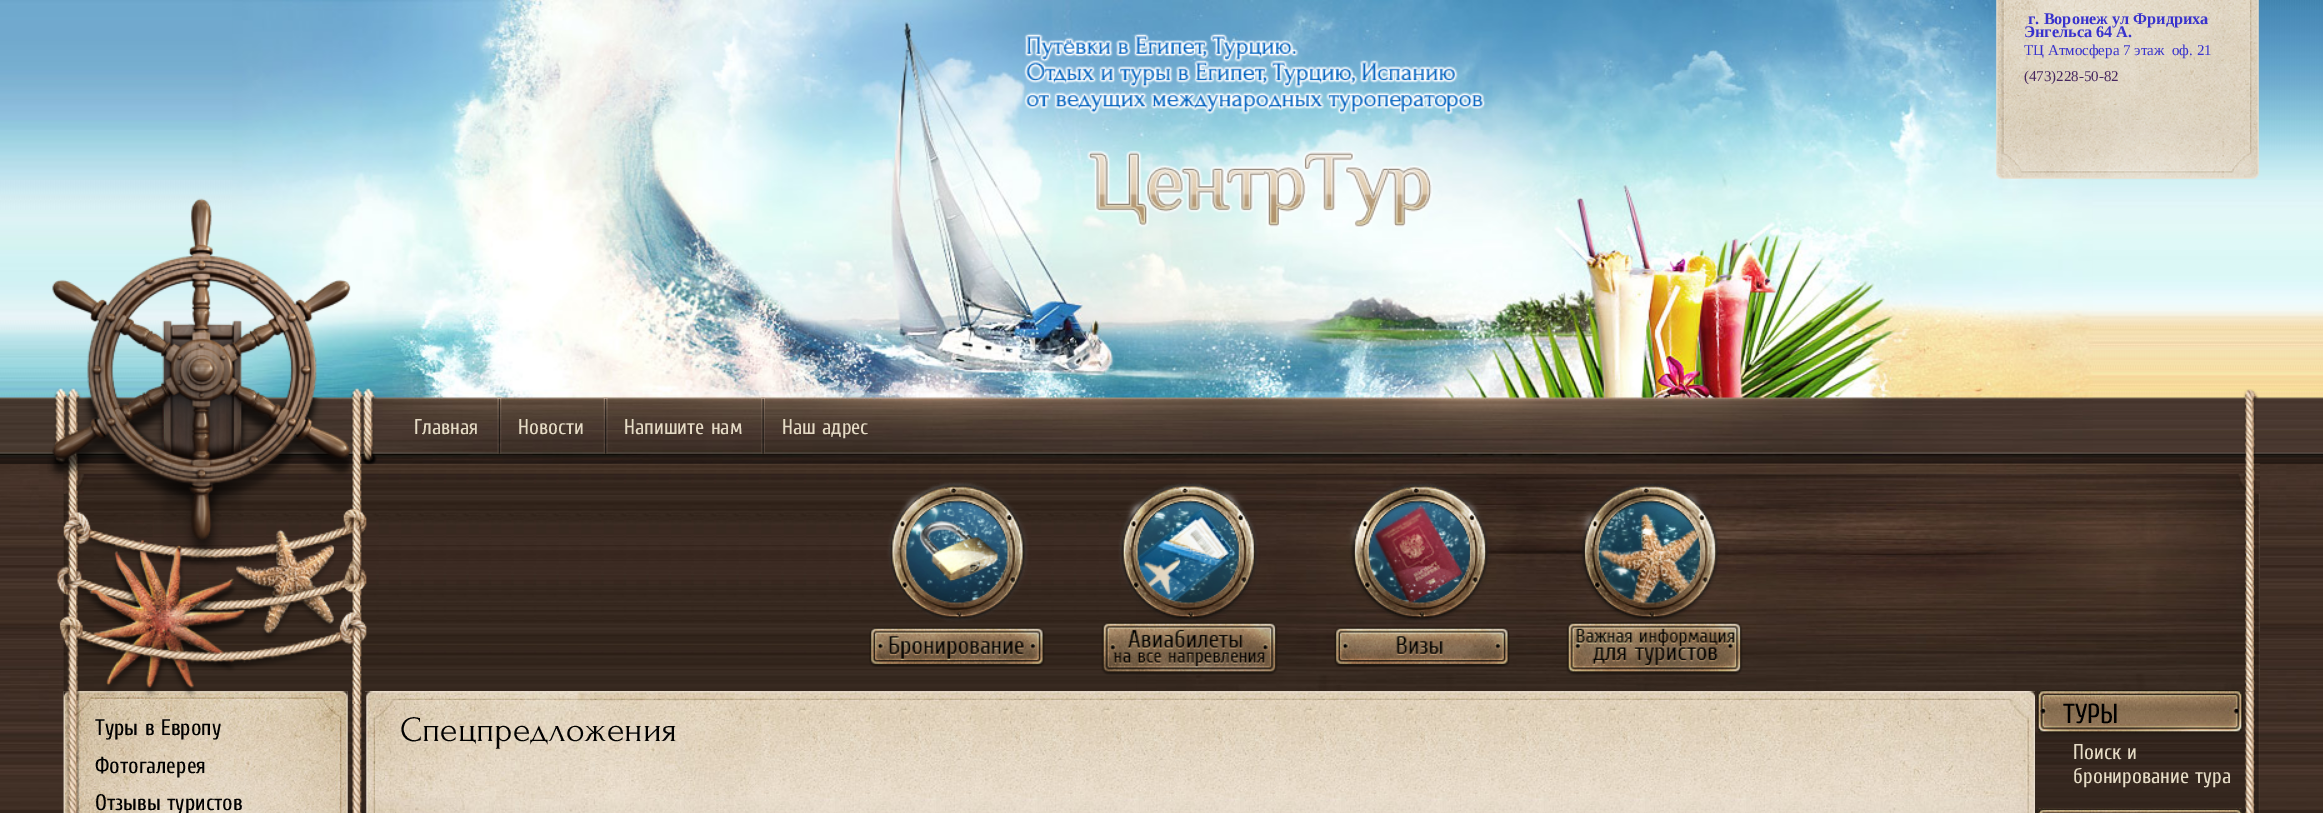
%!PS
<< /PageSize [2323 813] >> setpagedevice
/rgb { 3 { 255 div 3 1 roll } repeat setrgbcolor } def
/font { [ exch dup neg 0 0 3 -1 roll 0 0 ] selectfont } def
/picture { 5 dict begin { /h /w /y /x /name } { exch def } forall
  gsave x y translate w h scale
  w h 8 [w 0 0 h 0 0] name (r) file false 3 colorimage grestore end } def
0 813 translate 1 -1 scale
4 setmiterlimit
51 37 28 rgb
0 0 2323 813 rectfill
(img/1.rgb) 0 463 2323 347 picture
(img/2.rgb) 0 0 2323 464 picture
(img/3.rgb) 0 0 1163 464 picture
(img/4.rgb) 232 0 1861 464 picture
(img/5.rgb) 1024 33 462 82 picture
(img/6.rgb) 1996 0 263 179 picture
(img/7.rgb) 1087 150 346 78 picture
(img/13.rgb) 63 463 2197 228 picture
(img/15.rgb) 63 463 90 229 picture
(img/20.rgb) 63 691 302 122 picture
(img/22.rgb) 63 691 285 122 picture
(img/23.rgb) 63 691 285 122 picture
(img/14.rgb) 1136 463 1124 229 picture
(img/24.rgb) 365 691 1670 1 picture
(img/25.rgb) 365 691 1670 122 picture
(img/26.rgb) 365 691 397 122 picture
(img/8.rgb) 47 198 330 506 picture
(img/9.rgb) 497 397 5 57 picture
(img/10.rgb) 603 397 5 57 picture
(img/11.rgb) 761 397 4 57 picture
(img/21.rgb) 2035 691 225 122 picture
(img/12.rgb) 2243 389 16 303 picture
(img/16.rgb) 869 482 176 185 picture
(img/17.rgb) 1101 482 177 193 picture
(img/18.rgb) 1334 483 176 184 picture
(img/19.rgb) 1566 483 177 192 picture
(img/27.rgb) 1823 691 212 122 picture
(img/28.rgb) 2037 690 206 44 picture
(img/29.rgb) 2037 690 206 26 picture
(img/30.rgb) 2037 808 206 5 picture
(img/31.rgb) 2037 808 206 5 picture
/LiberationSerif-Bold 16.25 font
56 50 205 rgb
2028 24 moveto (г. Воронеж ул Фридриха) show
2024 37 moveto (Энгельса 64 А.) show
/LiberationSerif-Regular 15 font
2024 55 moveto (ТЦ Атмосфера 7 этаж  оф. 21) show
70 38 94 rgb
2024 81 moveto (\(473\)228-50-82) show
/Cuprum-Regular 21.25 font
229 219 197 rgb
[
  [(Главная) 414 434]
  [(Новости) 518 434]
  [(Напишите нам) 624 434]
  [(Наш адрес) 782 434]
] { aload pop moveto show } forall
/Cuprum-Regular 22.5 font
0 0 0 rgb
[
  [(Туры в Европу) 95 735]
  [(Фотогалерея) 95 773]
  [(Отзывы туристов) 95 810]
] { aload pop moveto show } forall
/Forum-Regular 27.5 font
400 741 moveto (Спецпредложения) show
/Cuprum-Regular 27.5 font
2063 723 moveto (ТУРЫ) show
/Cuprum-Regular 21.25 font
229 219 197 rgb
2073 759 moveto (Поиск и) show
2073 783 moveto (бронирование тура) show
showpage
